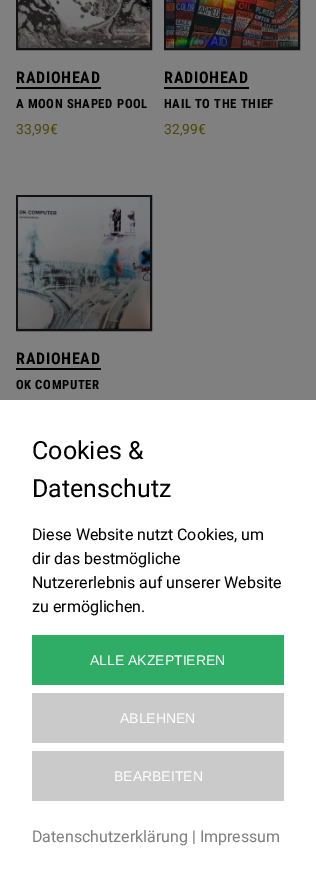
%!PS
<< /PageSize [316 891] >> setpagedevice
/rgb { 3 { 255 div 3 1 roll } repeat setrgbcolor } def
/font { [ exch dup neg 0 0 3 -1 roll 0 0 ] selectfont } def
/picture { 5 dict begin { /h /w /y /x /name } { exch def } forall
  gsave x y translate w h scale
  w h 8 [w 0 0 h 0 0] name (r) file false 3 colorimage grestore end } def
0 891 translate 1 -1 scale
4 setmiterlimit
128 128 128 rgb
0 0 316 891 rectfill
17 17 17 rgb
2 setlinewidth
17 -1 134 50 rectstroke
(img/1.rgb) 18 0 132 48 picture
0 0 0 rgb
16 87 85 2 rectfill
17 17 17 rgb
165 -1 134 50 rectstroke
(img/2.rgb) 166 0 132 48 picture
0 0 0 rgb
164 87 85 2 rectfill
17 17 17 rgb
17 196 134 134 rectstroke
(img/3.rgb) 18 197 132 132 picture
[
  [16 368 85 2 0 0 0]
  [0 400 316 491 255 255 255]
  [32 635 252 50 47 172 102]
  [32 693 252 50 202 202 202]
  [32 751 252 50 202 202 202]
] { aload pop rgb rectfill } forall
/RobotoCondensed-Bold 16 font
0 0 0 rgb
16 83 moveto 0.75 0 (RADIOHEAD) ashow
/RobotoCondensed-Bold 12.75 font
16 108 moveto 0.6 0 (A MOON SHAPED POOL) ashow
/Roboto-Regular 14 font
75 71 5 rgb
16 134 moveto (33,99€) show
/RobotoCondensed-Bold 16 font
0 0 0 rgb
164 83 moveto 0.75 0 (RADIOHEAD) ashow
/RobotoCondensed-Bold 12.75 font
164 108 moveto 0.6 0 (HAIL TO THE THIEF) ashow
/Roboto-Regular 14 font
75 71 5 rgb
164 134 moveto (32,99€) show
/RobotoCondensed-Bold 16 font
0 0 0 rgb
16 364 moveto 0.75 0 (RADIOHEAD) ashow
/RobotoCondensed-Bold 12.75 font
16 389 moveto 0.6 0 (OK COMPUTER) ashow
/Roboto-Regular 25 font
32 459 moveto (Cookies &) show
32 497 moveto (Datenschutz) show
/Roboto-Regular 16 font
[
  [(Diese Website nutzt Cookies, um) 32 540]
  [(dir das bestmögliche) 32 564]
  [(Nutzererlebnis auf unserer Website) 32 588]
  [(zu ermöglichen.) 32 612]
] { aload pop moveto show } forall
/LiberationSans-Regular 14 font
255 255 255 rgb
[
  [(ALLE AKZEPTIEREN) 90 665]
  [(ABLEHNEN) 120 723]
  [(BEARBEITEN) 114 781]
] { aload pop moveto show } forall
/Roboto-Regular 16 font
128 128 128 rgb
32 842 moveto (Datenschutzerklärung | Impressum) show
showpage
